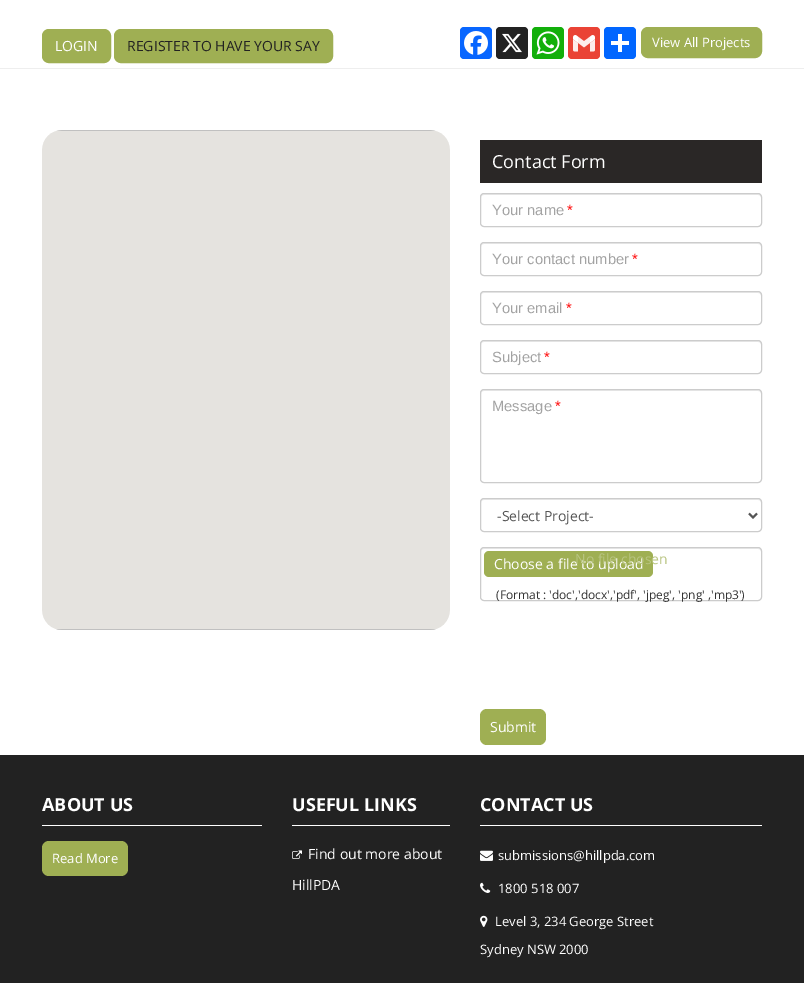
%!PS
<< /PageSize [804 983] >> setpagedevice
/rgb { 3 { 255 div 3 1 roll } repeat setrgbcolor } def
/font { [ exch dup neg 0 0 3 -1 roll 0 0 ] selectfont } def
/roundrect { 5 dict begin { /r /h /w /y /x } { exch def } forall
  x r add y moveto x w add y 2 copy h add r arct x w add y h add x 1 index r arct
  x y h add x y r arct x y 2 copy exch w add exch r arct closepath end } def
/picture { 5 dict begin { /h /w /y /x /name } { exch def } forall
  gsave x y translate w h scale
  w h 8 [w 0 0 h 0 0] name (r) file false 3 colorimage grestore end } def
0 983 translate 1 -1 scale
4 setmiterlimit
255 255 255 rgb
0 0 804 983 rectfill
238 238 238 rgb
0 68 804 1 rectfill
159 175 83 rgb
42.5 29.5 68 33 6.5 roundrect gsave fill grestore
stroke
114.5 29.5 218 33 6.5 roundrect gsave fill grestore
stroke
8 102 255 rgb
460 27 32 32 4 roundrect fill
(img/1.rgb) 464 31 24 24 picture
34 34 34 rgb
496 27 32 32 4 roundrect fill
(img/2.rgb) 502 33 20 20 picture
18 175 10 rgb
532 27 32 32 4 roundrect fill
(img/3.rgb) 536 31 24 24 picture
234 67 53 rgb
568 27 32 32 4 roundrect fill
(img/4.rgb) 573 35 22 17 picture
1 102 255 rgb
604 27 32 32 4 roundrect fill
255 255 255 rgb
618 34 4 18 rectfill
611 41 18 4 rectfill
159 175 83 rgb
641.5 27.5 120 30 6.5 roundrect gsave fill grestore
stroke
(img/5.rgb) 42 130 408 500 picture
42 39 38 rgb
480 140 282 43 rectfill
236 236 236 rgb
484 195 moveto 758 195 lineto 760 195 761 196 761 198 curveto 761 197 lineto 761 195 760 194 758 194 curveto 484 194 lineto 482 194 481 195 481 197 curveto 481 198 lineto 481 196 482 195 484 195 curveto closepath fill
204 204 204 rgb
480.5 193.5 281 33 3.5 roundrect stroke
236 236 236 rgb
484 244 moveto 758 244 lineto 760 244 761 245 761 247 curveto 761 246 lineto 761 244 760 243 758 243 curveto 484 243 lineto 482 243 481 244 481 246 curveto 481 247 lineto 481 245 482 244 484 244 curveto closepath fill
204 204 204 rgb
480.5 242.5 281 33 3.5 roundrect stroke
236 236 236 rgb
484 293 moveto 758 293 lineto 760 293 761 294 761 296 curveto 761 295 lineto 761 293 760 292 758 292 curveto 484 292 lineto 482 292 481 293 481 295 curveto 481 296 lineto 481 294 482 293 484 293 curveto closepath fill
204 204 204 rgb
480.5 291.5 281 33 3.5 roundrect stroke
236 236 236 rgb
484 342 moveto 758 342 lineto 760 342 761 343 761 345 curveto 761 344 lineto 761 342 760 341 758 341 curveto 484 341 lineto 482 341 481 342 481 344 curveto 481 345 lineto 481 343 482 342 484 342 curveto closepath fill
204 204 204 rgb
480.5 340.5 281 33 3.5 roundrect stroke
236 236 236 rgb
484 391 moveto 758 391 lineto 760 391 761 392 761 394 curveto 761 393 lineto 761 391 760 390 758 390 curveto 484 390 lineto 482 390 481 391 481 393 curveto 481 394 lineto 481 392 482 391 484 391 curveto closepath fill
204 204 204 rgb
480.5 389.5 281 93 3.5 roundrect stroke
236 236 236 rgb
484 500 moveto 758 500 lineto 760 500 761 501 761 503 curveto 761 502 lineto 761 500 760 499 758 499 curveto 484 499 lineto 482 499 481 500 481 502 curveto 481 503 lineto 481 501 482 500 484 500 curveto closepath fill
204 204 204 rgb
480.5 498.5 281 33 3.5 roundrect stroke
85 85 85 rgb
2 setlinewidth
749 513.5 moveto 753 517.5 lineto 757 513.5 lineto stroke
236 236 236 rgb
484 549 moveto 758 549 lineto 760 549 761 550 761 552 curveto 761 551 lineto 761 549 760 548 758 548 curveto 484 548 lineto 482 548 481 549 481 551 curveto 481 552 lineto 481 550 482 549 484 549 curveto closepath fill
204 204 204 rgb
1 setlinewidth
480.5 547.5 281 53 3.5 roundrect stroke
159 175 83 rgb
484 551 169 26 5 roundrect fill
480 709 66 36 7 roundrect fill
34 34 34 rgb
0 755 804 228 rectfill
255 255 255 rgb
42 825 220 1 rectfill
159 175 83 rgb
42 841 86 35 7 roundrect fill
255 255 255 rgb
292 825 158 1 rectfill
(img/6.rgb) 292 850 10 9 picture
480 825 282 1 rectfill
(img/7.rgb) 480 850 13 11 picture
(img/8.rgb) 480 882 11 11 picture
(img/9.rgb) 480 915 8 12 picture
/OpenSans-Regular 14 font
55 51 moveto (LOGIN) show
34 34 34 rgb
127 51 moveto (REGISTER TO HAVE YOUR SAY) show
/OpenSans-Regular 13 font
255 255 255 rgb
652 47 moveto (View All Projects) show
/OpenSans-Regular 18 font
492 168 moveto (Contact Form) show
/LiberationSans-Regular 14.75 font
163 163 163 rgb
492 215 moveto (Your name) show
255 0 0 rgb
567 215 moveto (*) show
163 163 163 rgb
492 264 moveto (Your contact number) show
255 0 0 rgb
632 264 moveto (*) show
163 163 163 rgb
492 313 moveto (Your email) show
255 0 0 rgb
566 313 moveto (*) show
163 163 163 rgb
492 362 moveto (Subject) show
255 0 0 rgb
544 362 moveto (*) show
163 163 163 rgb
492 411 moveto (Message) show
255 0 0 rgb
555 411 moveto (*) show
/OpenSans-Regular 14 font
85 85 85 rgb
497 521 moveto (-Select Project-) show
255 255 255 rgb
494 569 moveto (Choose a file to upload) show
184 196 128 rgb
575 564 moveto (No file chosen) show
/OpenSans-Regular 12 font
51 51 51 rgb
496 599 moveto (\(Format : 'doc','docx','pdf', 'jpeg', 'png' ,'mp3'\)) show
/OpenSans-Regular 14 font
255 255 255 rgb
490 732 moveto (Submit) show
/OpenSans-Bold 18 font
42 811 moveto (ABOUT US) show
/OpenSans-Regular 13 font
52 863 moveto (Read More) show
/OpenSans-Bold 18 font
292 811 moveto (USEFUL LINKS) show
/OpenSans-Regular 14 font
308 859 moveto (Find out more about) show
292 890 moveto (HillPDA) show
/OpenSans-Bold 18 font
480 811 moveto (CONTACT US) show
/OpenSans-Regular 13 font
[
  [(submissions@hillpda.com) 498 860]
  [(1800 518 007) 498 893]
  [(Level 3, 234 George Street) 495 926]
  [(Sydney NSW 2000) 480 954]
] { aload pop moveto show } forall
showpage
